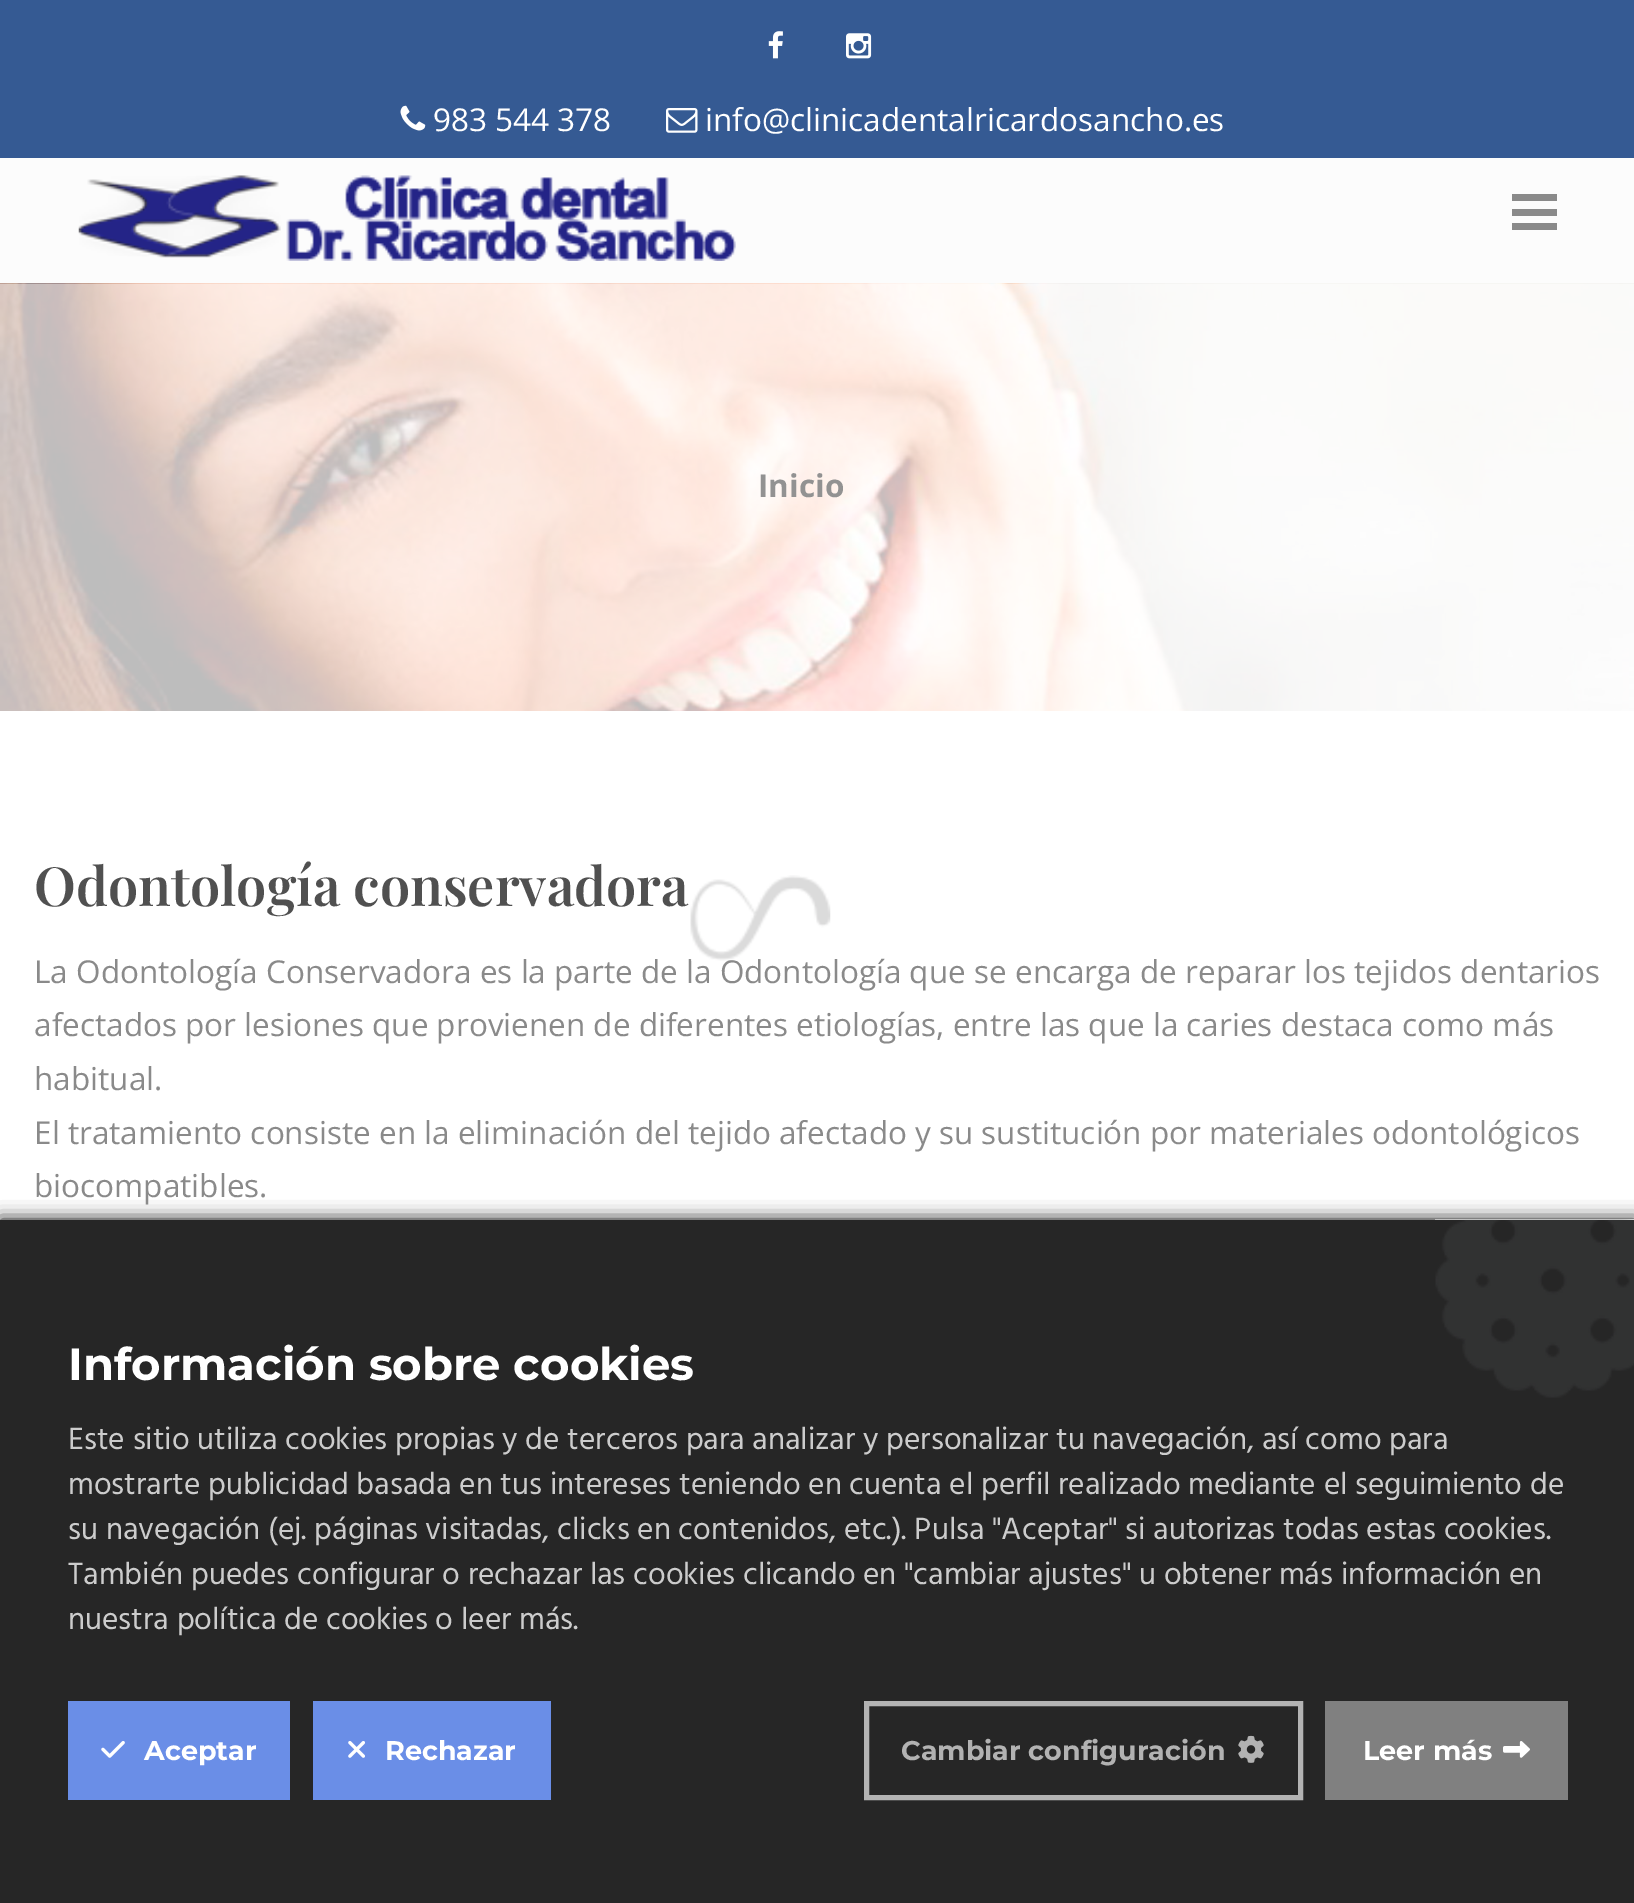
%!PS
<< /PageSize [1634 1903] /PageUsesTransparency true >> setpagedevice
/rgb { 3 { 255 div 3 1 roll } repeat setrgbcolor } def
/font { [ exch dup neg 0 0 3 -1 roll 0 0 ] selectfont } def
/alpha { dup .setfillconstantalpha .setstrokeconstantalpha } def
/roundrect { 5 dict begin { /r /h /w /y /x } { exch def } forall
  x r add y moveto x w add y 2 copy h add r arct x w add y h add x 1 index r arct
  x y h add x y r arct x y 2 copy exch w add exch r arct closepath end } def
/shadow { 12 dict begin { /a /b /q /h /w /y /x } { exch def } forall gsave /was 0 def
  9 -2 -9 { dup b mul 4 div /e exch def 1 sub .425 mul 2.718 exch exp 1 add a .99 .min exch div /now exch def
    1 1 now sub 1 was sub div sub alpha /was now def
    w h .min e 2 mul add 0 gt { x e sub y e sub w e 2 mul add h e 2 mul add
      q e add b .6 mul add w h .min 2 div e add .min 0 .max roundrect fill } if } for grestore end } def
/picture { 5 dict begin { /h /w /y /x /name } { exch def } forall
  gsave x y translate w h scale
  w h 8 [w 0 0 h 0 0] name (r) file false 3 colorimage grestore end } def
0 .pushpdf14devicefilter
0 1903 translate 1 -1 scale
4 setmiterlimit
255 255 255 rgb
0 0 1634 1903 rectfill
53 90 147 rgb
0 0 1634 158 rectfill
(img/1.rgb) 768 31 15 28 picture
(img/2.rgb) 846 33 26 26 picture
(img/3.rgb) 400 105 26 26 picture
(img/4.rgb) 666 108 32 25 picture
252 252 252 rgb
0 158 1634 126 rectfill
(img/5.rgb) 78 175 658 86 picture
[
  [1512 194 45 7 138 138 138]
  [1512 209 45 7 138 138 138]
  [1512 223 45 7 138 138 138]
] { aload pop rgb rectfill } forall
(img/6.rgb) 0 283 1634 428 picture
0 0 0 rgb
0 1220 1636 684 0 9 1 shadow
38 38 38 rgb
0 1220 1634 683 rectfill
(img/8.rgb) 1435 1219 199 179 picture
106 142 231 rgb
68 1701 222 99 rectfill
(img/9.rgb) 101 1741 24 17 picture
313 1701 238 99 rectfill
(img/10.rgb) 348 1741 17 17 picture
179 179 179 rgb
5 setlinewidth
866.5 1703.5 434 94 rectstroke
(img/11.rgb) 1238 1735 26 28 picture
128 128 128 rgb
1325 1701 243 99 rectfill
(img/12.rgb) 1503 1741 27 17 picture
/OpenSans-Regular 31.5 font
255 255 255 rgb
433 131 moveto (983 544 378) show
705 131 moveto (info@clinicadentalricardosancho.es) show
/OpenSans-Bold 31.5 font
146 146 146 rgb
758 497 moveto (Inicio) show
/PlayfairDisplay-SemiBold 54 font
80 80 80 rgb
34 906 moveto (Odontología conservadora) show
/OpenSans-Regular 31.5 font
138 138 138 rgb
[
  [(La Odontología Conservadora es la parte de la Odontología que se encarga de reparar los tejidos dentarios) 34 983]
  [(afectados por lesiones que provienen de diferentes etiologías, entre las que la caries destaca como más) 34 1036]
  [(habitual.) 34 1090]
  [(El tratamiento consiste en la eliminación del tejido afectado y su sustitución por materiales odontológicos) 34 1144]
  [(biocompatibles.) 34 1197]
] { aload pop moveto show } forall
(img/7.rgb) 690 875 141 86 picture
/Montserrat-Bold 45 font
255 255 255 rgb
68 1380 moveto (Información sobre cookies) show
/Hind-Regular 31.5 font
204 204 204 rgb
[
  [(Este sitio utiliza cookies propias y de terceros para analizar y personalizar tu navegación, así como para) 68 1449]
  [(mostrarte publicidad basada en tus intereses teniendo en cuenta el perfil realizado mediante el seguimiento de) 68 1494]
  [(su navegación \(ej. páginas visitadas, clicks en contenidos, etc.\). Pulsa "Aceptar" si autorizas todas estas cookies.) 68 1539]
  [(También puedes configurar o rechazar las cookies clicando en "cambiar ajustes" u obtener más información en) 68 1584]
  [(nuestra política de cookies o leer más.) 68 1629]
] { aload pop moveto show } forall
/Montserrat-Bold 27 font
255 255 255 rgb
144 1760 moveto (Aceptar) show
385 1760 moveto (Rechazar) show
178 178 178 rgb
901 1760 moveto (Cambiar configuración) show
255 255 255 rgb
1363 1760 moveto (Leer más) show
.poppdf14devicefilter showpage
